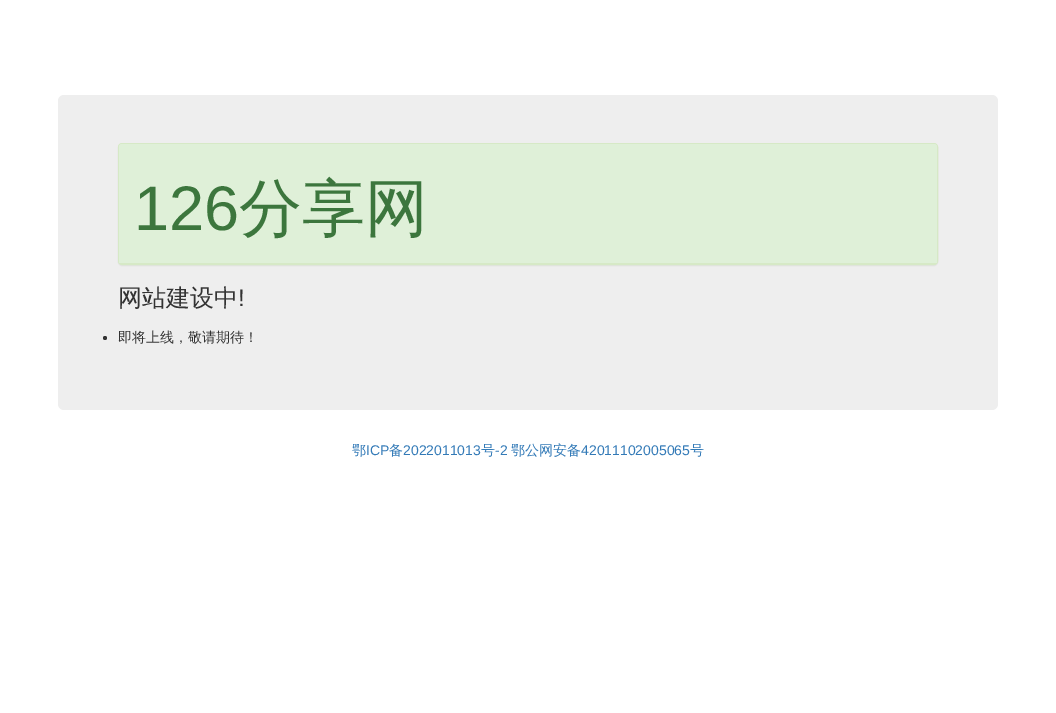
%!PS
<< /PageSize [1056 713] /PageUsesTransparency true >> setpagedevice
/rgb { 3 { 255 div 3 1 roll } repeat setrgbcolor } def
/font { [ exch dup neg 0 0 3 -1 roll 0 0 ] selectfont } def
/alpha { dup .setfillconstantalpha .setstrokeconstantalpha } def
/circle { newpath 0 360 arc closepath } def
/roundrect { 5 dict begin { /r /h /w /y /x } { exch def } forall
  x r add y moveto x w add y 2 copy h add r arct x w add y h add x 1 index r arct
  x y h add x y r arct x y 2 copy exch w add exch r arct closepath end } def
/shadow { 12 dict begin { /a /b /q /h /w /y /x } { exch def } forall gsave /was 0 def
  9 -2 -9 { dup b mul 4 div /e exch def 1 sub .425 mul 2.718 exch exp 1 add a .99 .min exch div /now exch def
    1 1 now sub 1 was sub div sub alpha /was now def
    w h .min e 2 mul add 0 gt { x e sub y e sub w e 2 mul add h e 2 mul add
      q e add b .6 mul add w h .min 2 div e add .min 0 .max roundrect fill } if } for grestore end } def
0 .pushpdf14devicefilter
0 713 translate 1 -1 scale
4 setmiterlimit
255 255 255 rgb
0 0 1056 713 rectfill
238 238 238 rgb
58 95 940 315 6 roundrect fill
0 0 0 rgb
118 144 820 122 4 0.5 0.05 shadow
214 233 198 rgb
118.5 143.5 819 121 3.5 roundrect stroke
223 240 216 rgb
122 144 moveto 934 144 lineto 935.5 144 937 145.5 937 147 curveto 937 264 lineto 119 264 lineto 119 147 lineto 119 145.5 120.5 144 122 144 curveto closepath fill
214 233 198 rgb
119 263 818 1 rectfill
51 51 51 rgb
105 338 2 circle fill
/LiberationSans-Regular 63 font
60 118 61 rgb
134 230 moveto (126) show
/WenQuanYiZenHei-Medium 63 font
239 230 moveto (分享网) show
/WenQuanYiZenHei-Medium 24 font
51 51 51 rgb
118 306 moveto (网站建设中) show
/LiberationSans-Regular 24 font
238 306 moveto (!) show
/WenQuanYiZenHei-Medium 14 font
118 342 moveto (即将上线，敬请期待！) show
51 122 183 rgb
352 455 moveto (鄂) show
/LiberationSans-Regular 14 font
366 455 moveto (ICP) show
/WenQuanYiZenHei-Medium 14 font
389 455 moveto (备) show
/LiberationSans-Regular 14 font
403 455 moveto (2022011013) show
/WenQuanYiZenHei-Medium 14 font
481 455 moveto (号) show
/LiberationSans-Regular 14 font
495 455 moveto (-2) show
/WenQuanYiZenHei-Medium 14 font
511 455 moveto (鄂公网安备) show
/LiberationSans-Regular 14 font
581 455 moveto (42011102005065) show
/WenQuanYiZenHei-Medium 14 font
690 455 moveto (号) show
.poppdf14devicefilter showpage
